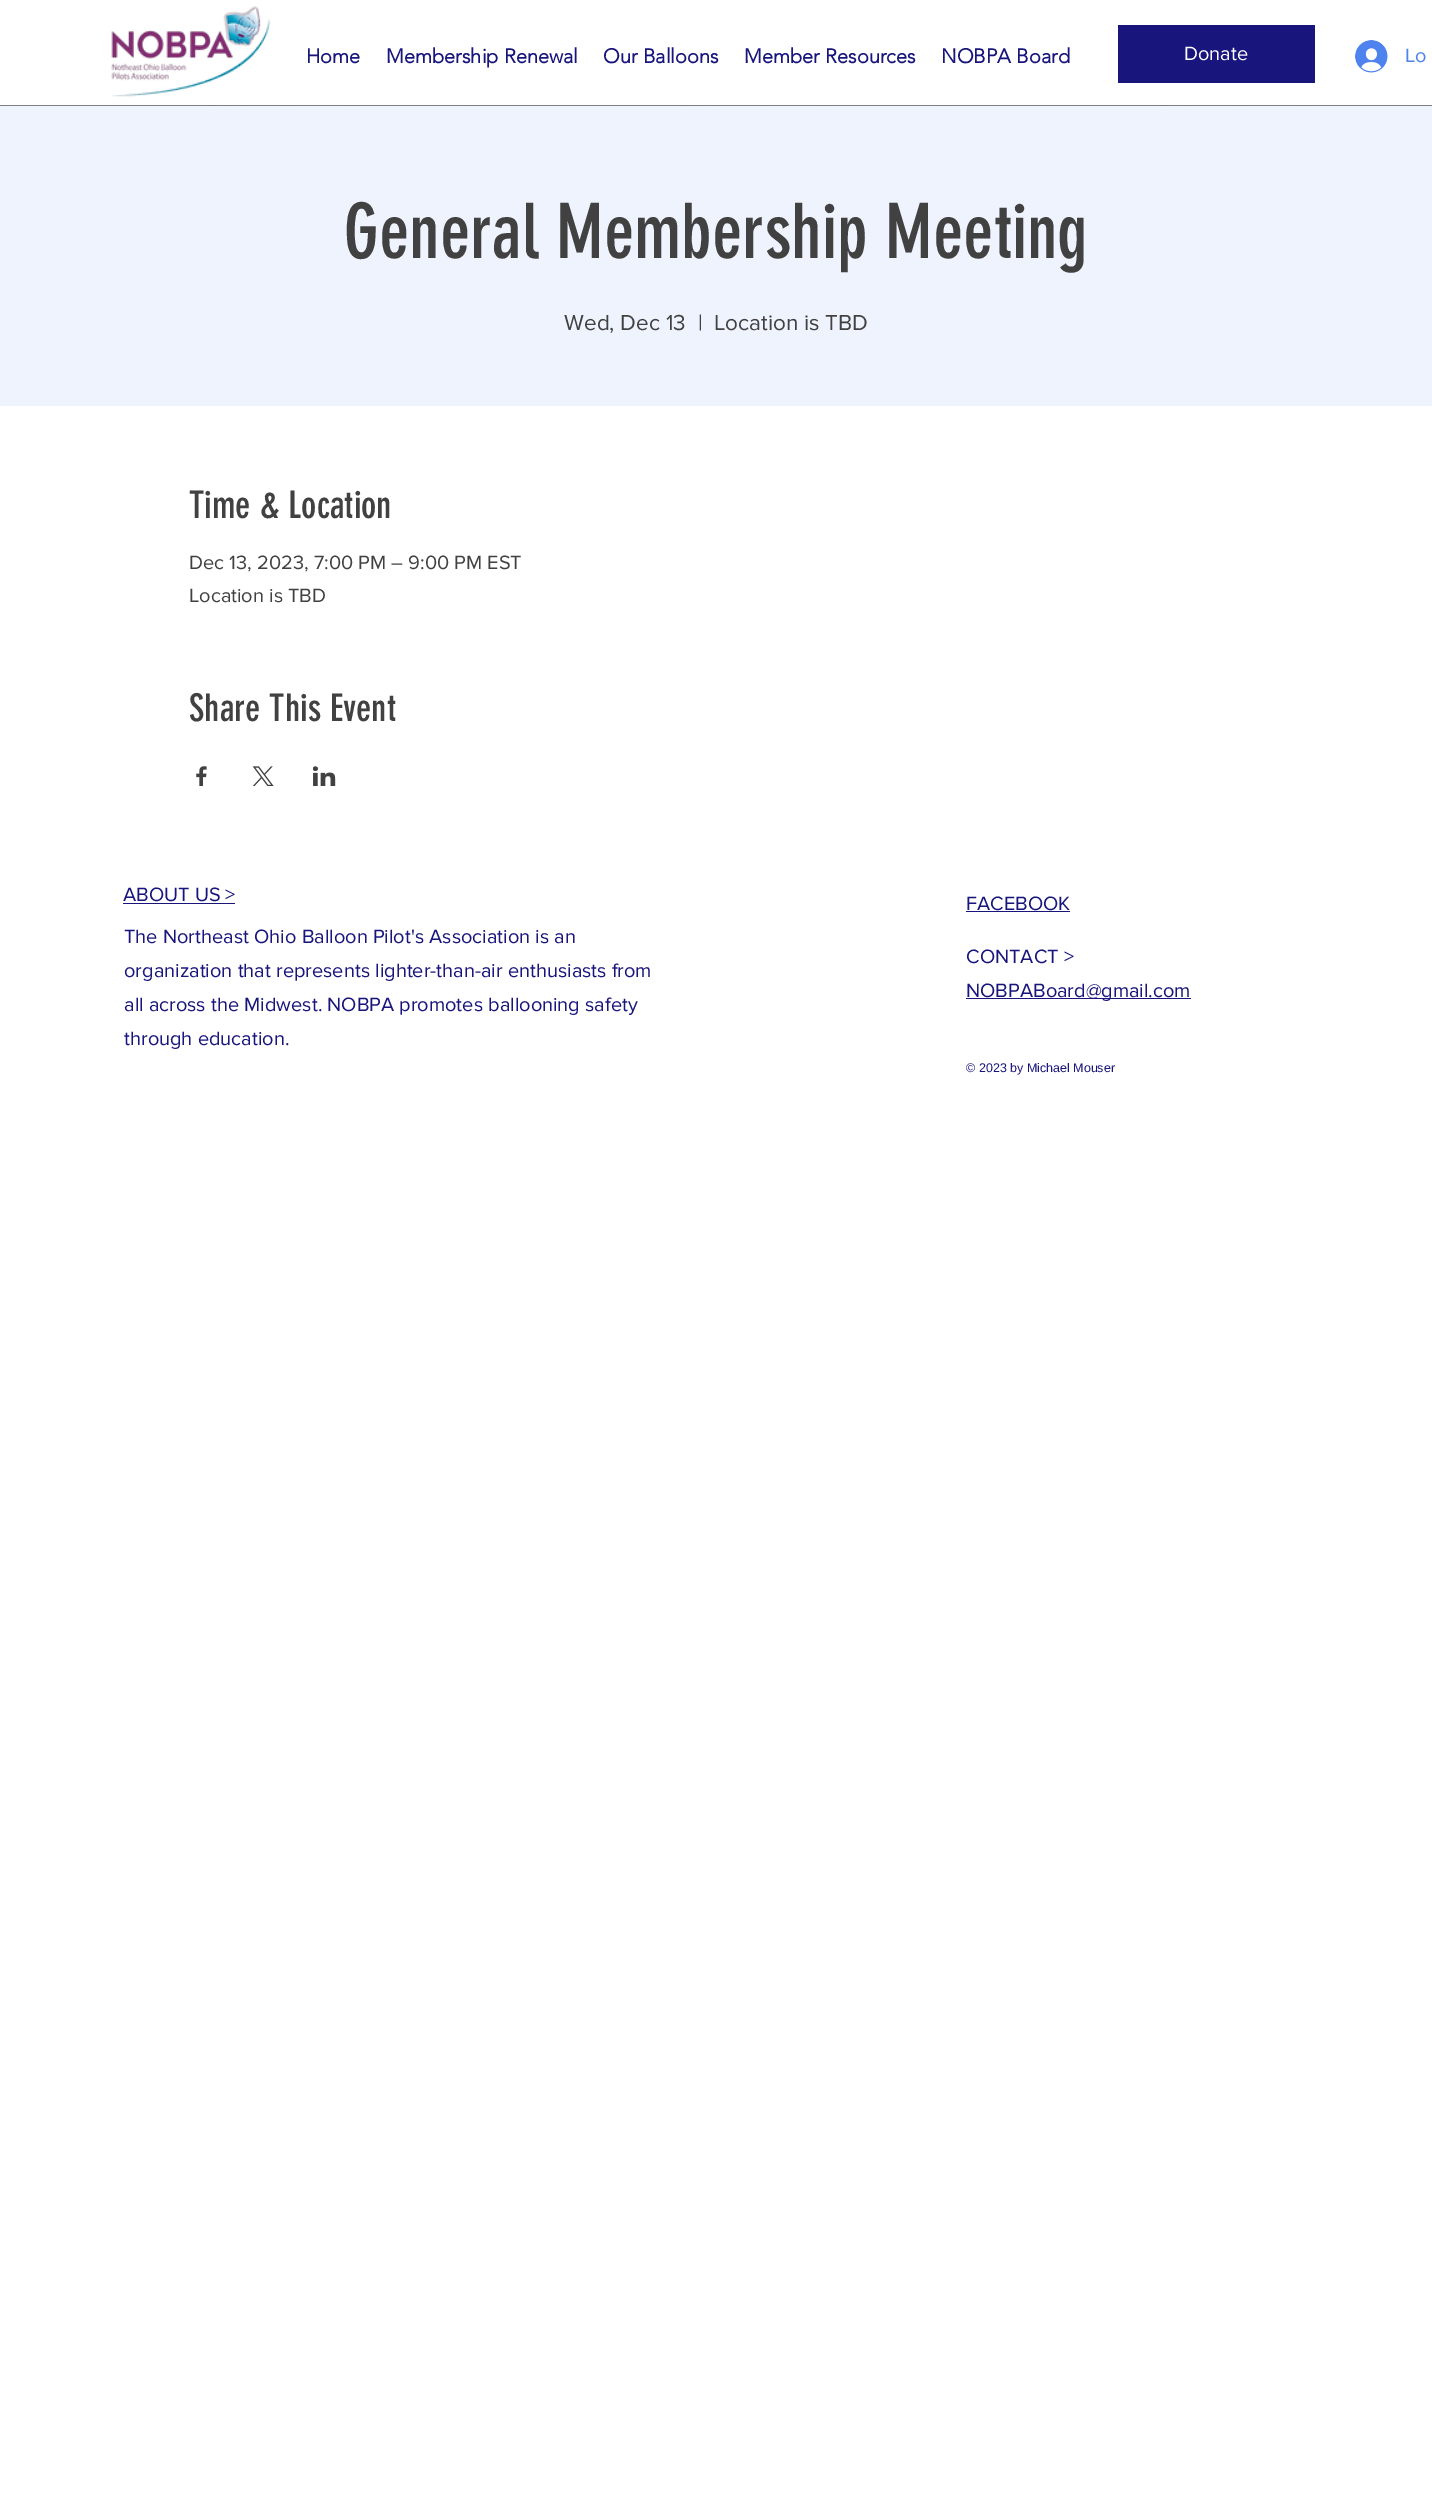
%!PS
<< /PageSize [1432 2495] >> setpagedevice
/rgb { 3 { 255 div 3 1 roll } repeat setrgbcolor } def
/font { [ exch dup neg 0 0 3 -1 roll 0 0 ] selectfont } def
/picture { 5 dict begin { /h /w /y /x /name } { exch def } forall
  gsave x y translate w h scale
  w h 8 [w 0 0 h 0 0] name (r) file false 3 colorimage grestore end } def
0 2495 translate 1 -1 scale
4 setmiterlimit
255 255 255 rgb
0 0 1432 2495 rectfill
24 21 124 rgb
1118 25 197 58 rectfill
(img/1.rgb) 111 6 160 91 picture
(img/2.rgb) 1355 40 33 33 picture
(img/3.rgb) 0 105 1432 1 picture
238 243 254 rgb
0 106 1432 300 rectfill
(img/4.rgb) 196 766 11 20 picture
(img/5.rgb) 252 766 22 20 picture
(img/6.rgb) 313 766 23 20 picture
[
  [123 903 112 1 24 21 124]
  [966 911 104 1 24 21 124]
  [966 998 225 1 24 21 124]
] { aload pop rgb rectfill } forall
/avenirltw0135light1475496-Bold 20 font
[
  [(Home) 306 63]
  [(Membership Renewal) 386 63]
  [(Our Balloons) 603 63]
  [(Member Resources) 744 63]
  [(NOBPA Board) 941 63]
] { aload pop moveto show } forall
/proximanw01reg-Regular 20 font
255 255 255 rgb
1184 60 moveto (Donate) show
77 130 239 rgb
1405 62 moveto (Lo) show
/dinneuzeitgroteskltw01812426-Regular 75 font
65 65 65 rgb
344 258 moveto (General Membership Meeting) show
/proximanw01reg-Regular 22.5 font
[
  [(Wed, Dec 13) 564 330]
  [(|) 698 330]
  [(Location is TBD) 714 330]
] { aload pop moveto show } forall
/dinneuzeitgroteskltw01812426-Regular 37.5 font
189 518 moveto (Time & Location) show
/proximanw01reg-Regular 20 font
189 569 moveto (Dec 13, 2023, 7:00 PM – 9:00 PM EST) show
189 602 moveto (Location is TBD) show
/dinneuzeitgroteskltw01812426-Regular 37.5 font
189 721 moveto (Share This Event) show
/proximanw01reg-Regular 20 font
24 21 124 rgb
[
  [(ABOUT US >) 123 901]
  [(The Northeast Ohio Balloon Pilot's Association is an) 124 943]
  [(organization that represents lighter-than-air enthusiasts from) 124 977]
  [(all across the Midwest. NOBPA promotes ballooning safety) 124 1011]
  [(through education.) 124 1045]
  [(FACEBOOK) 966 910]
  [(CONTACT >) 966 963]
  [(NOBPABoard@gmail.com) 966 997]
] { aload pop moveto show } forall
/LiberationSans-Regular 12.5 font
966 1072 moveto (© 2023 by Michael Mouser) show
showpage
